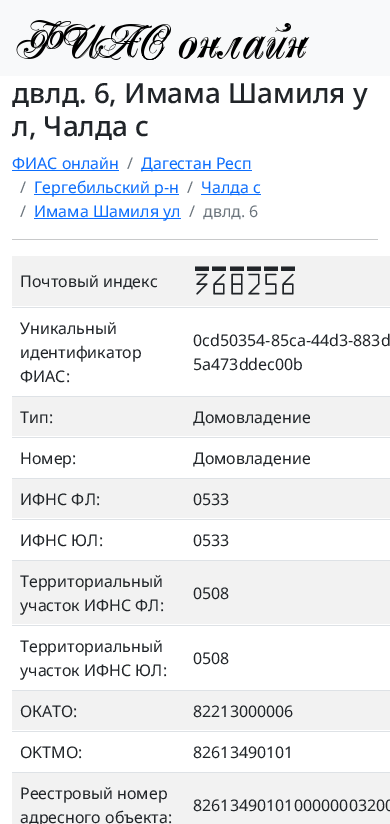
%!PS
<< /PageSize [390 824] >> setpagedevice
/rgb { 3 { 255 div 3 1 roll } repeat setrgbcolor } def
/font { [ exch dup neg 0 0 3 -1 roll 0 0 ] selectfont } def
/picture { 5 dict begin { /h /w /y /x /name } { exch def } forall
  gsave x y translate w h scale
  w h 8 [w 0 0 h 0 0] name (r) file false 3 colorimage grestore end } def
0 824 translate 1 -1 scale
4 setmiterlimit
255 255 255 rgb
0 0 390 824 rectfill
248 249 250 rgb
0 0 390 76 rectfill
(img/1.rgb) 16 20 294 40 picture
[
  [12 170 107 1 13 110 253]
  [141 170 111 1 13 110 253]
  [34 194 145 1 13 110 253]
  [201 194 60 1 13 110 253]
  [34 218 147 1 13 110 253]
  [12 239 366 1 200 201 202]
  [12 256 378 50 242 242 242]
  [12 307 378 1 222 226 230]
  [12 396 378 1 222 226 230]
  [12 397 378 39 242 242 242]
  [12 437 378 1 222 226 230]
  [12 478 378 1 222 226 230]
  [12 479 378 39 242 242 242]
  [12 519 378 1 222 226 230]
  [12 560 378 1 222 226 230]
  [12 561 378 63 242 242 242]
  [12 625 378 1 222 226 230]
  [12 690 378 1 222 226 230]
  [12 691 378 39 242 242 242]
  [12 731 378 1 222 226 230]
  [12 772 378 1 222 226 230]
  [12 773 378 51 242 242 242]
] { aload pop rgb rectfill } forall
/NotoSans-Medium 27.8 font
33 37 41 rgb
12 103 moveto (двлд. 6, Имама Шамиля у) show
12 136 moveto (л, Чалда с) show
/NotoSans-Regular 16 font
13 110 253 rgb
12 169 moveto (ФИАС онлайн) show
108 117 125 rgb
127 169 moveto (/) show
13 110 253 rgb
141 169 moveto (Дагестан Респ) show
108 117 125 rgb
20 193 moveto (/) show
13 110 253 rgb
34 193 moveto (Гергебильский р-н) show
108 117 125 rgb
187 193 moveto (/) show
13 110 253 rgb
201 193 moveto (Чалда с) show
108 117 125 rgb
20 217 moveto (/) show
13 110 253 rgb
34 217 moveto (Имама Шамиля ул) show
108 117 125 rgb
189 217 moveto (/) show
203 217 moveto (двлд. 6) show
33 37 41 rgb
20 287 moveto (Почтовый индекс) show
/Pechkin-Bold 23 font
193 294 moveto (368256) show
/NotoSans-Regular 16 font
[
  [(Уникальный) 20 334]
  [(идентификатор) 20 358]
  [(ФИАС:) 20 382]
  [(0cd50354-85ca-44d3-883d) 193 346]
  [(5a473ddec00b) 193 370]
  [(Тип:) 20 423]
  [(Домовладение) 193 423]
  [(Номер:) 20 464]
  [(Домовладение) 193 464]
  [(ИФНС ФЛ:) 20 505]
  [(0533) 193 505]
  [(ИФНС ЮЛ:) 20 546]
  [(0533) 193 546]
  [(Территориальный) 20 587]
  [(участок ИФНС ФЛ:) 20 611]
  [(0508) 193 599]
  [(Территориальный) 20 652]
  [(участок ИФНС ЮЛ:) 20 676]
  [(0508) 193 664]
  [(ОКАТО:) 20 717]
  [(82213000006) 193 717]
  [(OKTMO:) 20 758]
  [(82613490101) 193 758]
  [(Реестровый номер) 20 799]
  [(адресного объекта:) 20 823]
  [(8261349010100000003200) 193 811]
] { aload pop moveto show } forall
showpage
